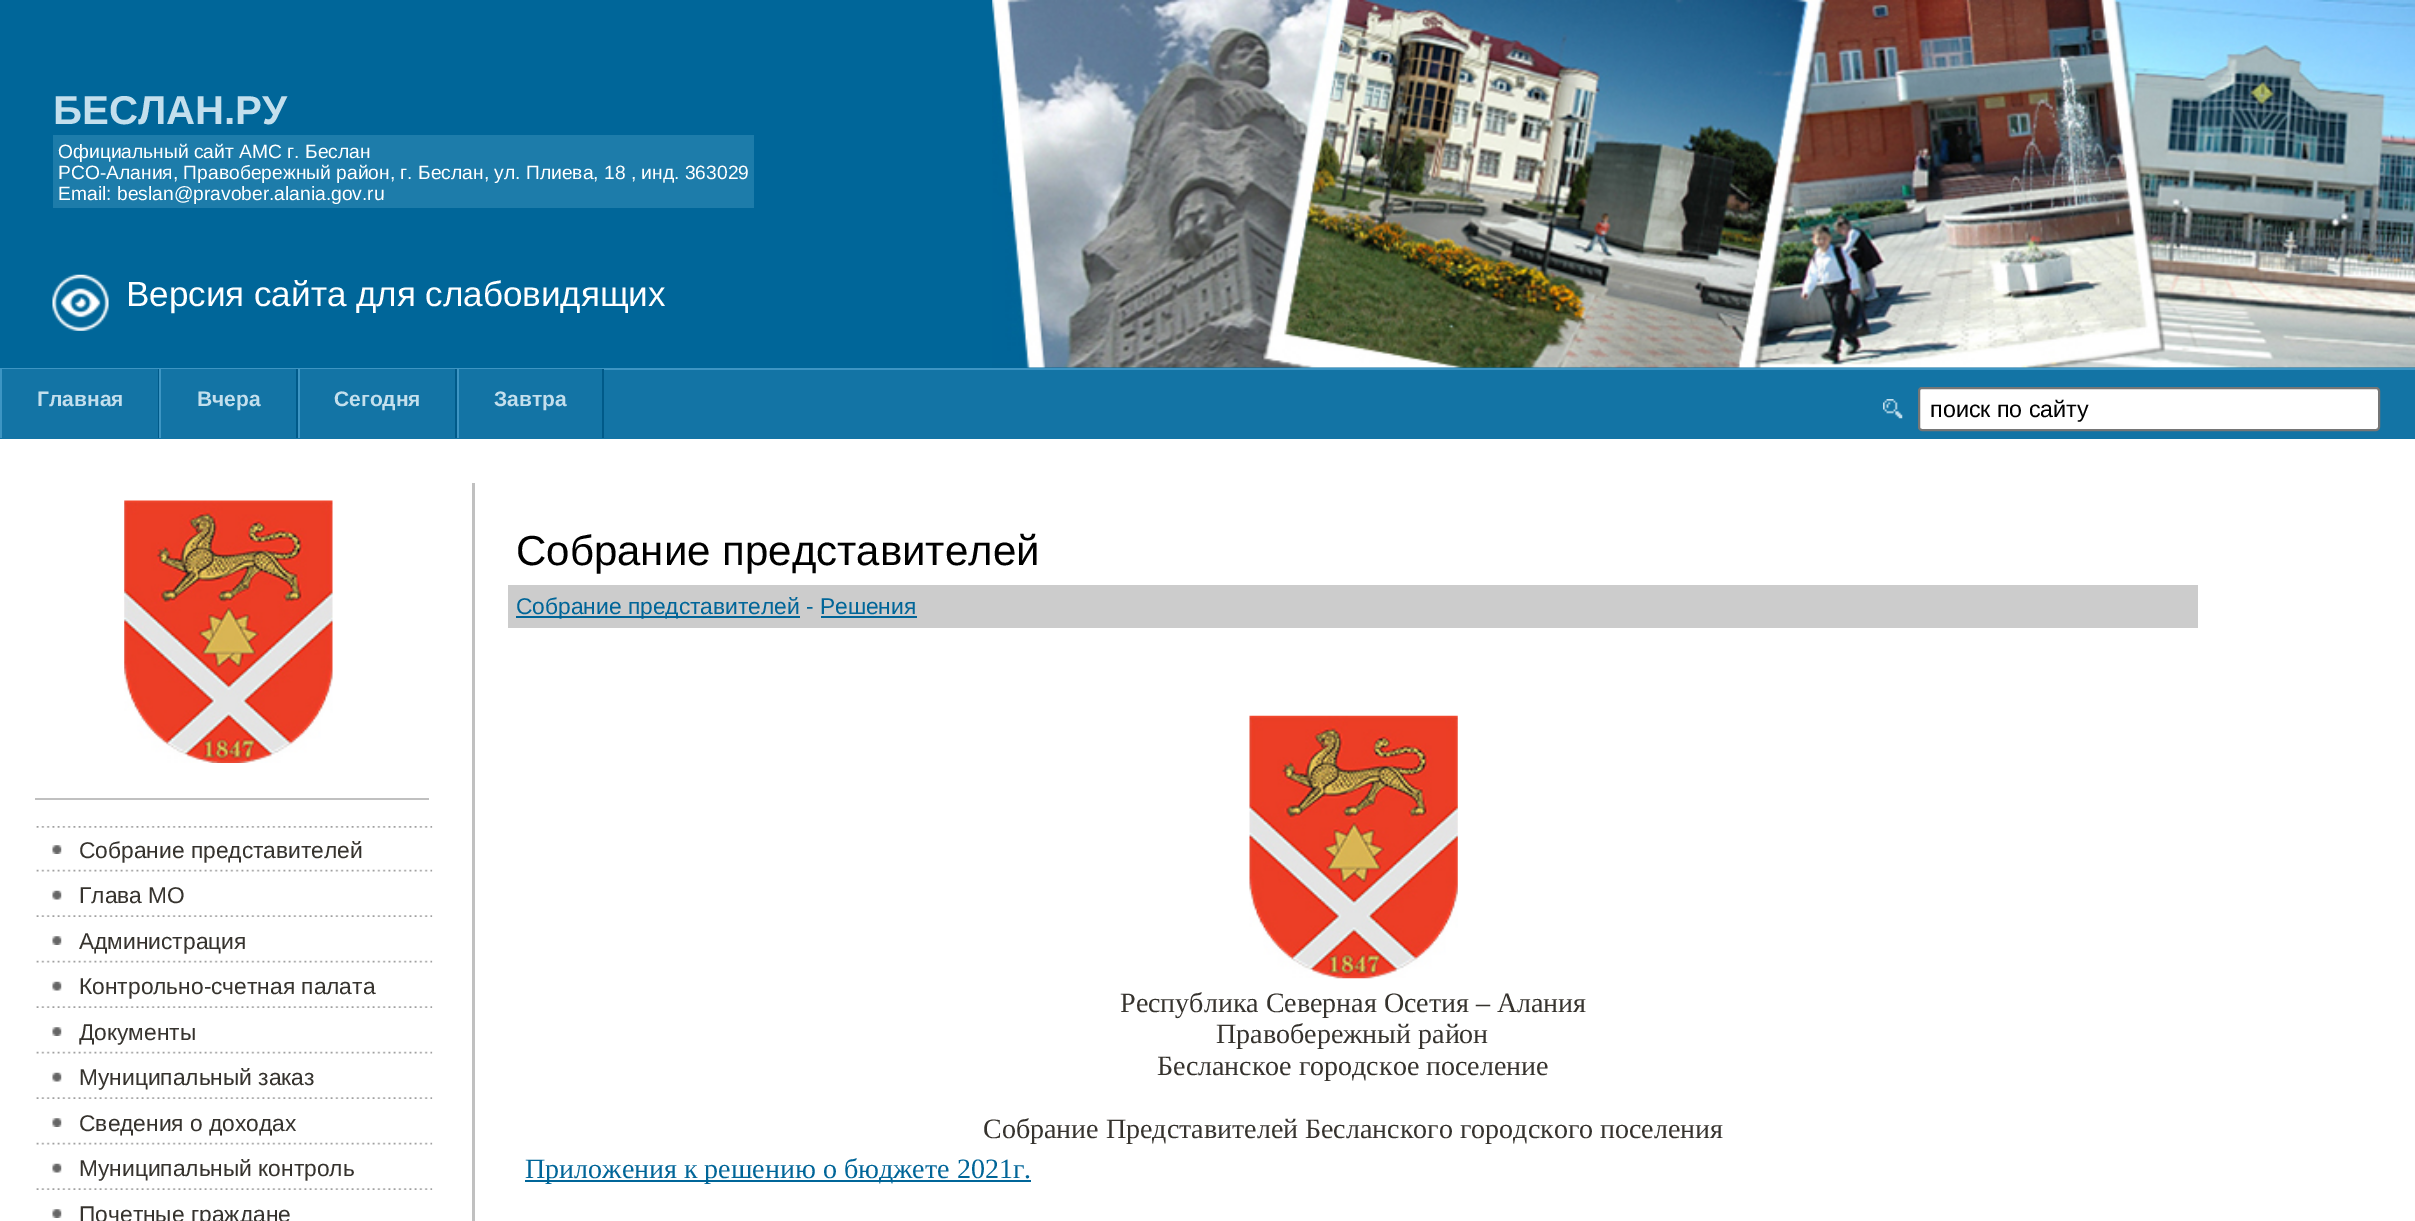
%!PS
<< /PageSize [2415 1221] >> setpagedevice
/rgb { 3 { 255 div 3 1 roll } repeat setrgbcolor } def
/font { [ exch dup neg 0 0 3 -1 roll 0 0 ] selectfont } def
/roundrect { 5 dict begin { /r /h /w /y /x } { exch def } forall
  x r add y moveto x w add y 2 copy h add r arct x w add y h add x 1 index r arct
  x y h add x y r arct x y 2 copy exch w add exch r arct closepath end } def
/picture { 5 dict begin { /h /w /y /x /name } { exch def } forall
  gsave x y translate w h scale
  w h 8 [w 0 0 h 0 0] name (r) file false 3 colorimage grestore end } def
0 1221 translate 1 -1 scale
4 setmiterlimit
255 255 255 rgb
0 0 2415 1221 rectfill
0 102 153 rgb
0 0 2415 368 rectfill
(img/1.rgb) 992 0 1423 368 picture
29 124 170 rgb
53 135 701 73 rectfill
(img/2.rgb) 52 274 57 57 picture
[
  [0 370 2415 69 19 116 165]
  [0 368 2415 2 61 149 195]
  [2 369 156 1 19 116 165]
  [158 369 1 69 0 90 137]
  [0 369 2 69 61 149 195]
  [161 369 135 1 19 116 165]
  [296 369 2 69 0 90 137]
  [159 369 2 69 61 149 195]
  [300 369 155 1 19 116 165]
  [455 369 2 69 0 90 137]
  [298 369 2 69 61 149 195]
  [459 369 143 1 19 116 165]
  [602 369 2 69 0 90 137]
  [457 369 2 69 61 149 195]
] { aload pop rgb rectfill } forall
(img/3.rgb) 1883 399 20 20 picture
255 255 255 rgb
1919 388 460 42 3 roundrect gsave fill grestore
118 118 118 rgb
2 setlinewidth
stroke
192 192 192 rgb
35 798 394 2 rectfill
(img/4.rgb) 124 500 209 263 picture
(img/5.rgb) 36 826 397 2 picture
(img/6.rgb) 36 869 397 3 picture
(img/7.rgb) 52 845 10 9 picture
(img/8.rgb) 36 915 397 2 picture
(img/9.rgb) 52 890 10 10 picture
(img/6.rgb) 36 960 397 3 picture
(img/7.rgb) 52 936 10 9 picture
(img/8.rgb) 36 1006 397 2 picture
(img/9.rgb) 52 981 10 10 picture
(img/6.rgb) 36 1051 397 3 picture
(img/7.rgb) 52 1027 10 9 picture
(img/8.rgb) 36 1097 397 2 picture
(img/9.rgb) 52 1072 10 10 picture
(img/6.rgb) 36 1142 397 3 picture
(img/7.rgb) 52 1118 10 9 picture
(img/8.rgb) 36 1188 397 2 picture
(img/9.rgb) 52 1163 10 10 picture
(img/7.rgb) 52 1209 10 9 picture
[
  [472 483 3 738 192 192 192]
  [508 585 1690 43 204 204 204]
  [516 616 284 2 0 101 152]
  [821 616 96 2 0 101 152]
] { aload pop rgb rectfill } forall
(img/10.rgb) 1249 715 209 264 picture
0 102 153 rgb
525 1180 506 2 rectfill
/LiberationSans-Bold 40.25 font
195 223 237 rgb
53 124 moveto (БЕСЛАН.РУ) show
/LiberationSans-Regular 19.25 font
255 255 255 rgb
[
  [(Официальный сайт АМС г. Беслан) 58 158]
  [(РСО-Алания, Правобережный район, г. Беслан, ул. Плиева, 18 , инд. 363029) 58 179]
  [(Email: beslan@pravober.alania.gov.ru) 58 200]
] { aload pop moveto show } forall
/LiberationSans-Regular 35 font
126 306 moveto (Версия сайта для слабовидящих) show
/LiberationSans-Bold 21 font
195 223 237 rgb
[
  [(Главная) 37 406]
  [(Вчера) 197 406]
  [(Сегодня) 334 406]
  [(Завтра) 494 406]
] { aload pop moveto show } forall
/LiberationSans-Regular 23.25 font
0 0 0 rgb
1930 417 moveto (поиск по сайту) show
/LiberationSans-Regular 22.75 font
54 51 46 rgb
[
  [(Собрание представителей) 79 858]
  [(Глава МО) 79 903]
  [(Администрация) 79 949]
  [(Контрольно-счетная палата) 79 994]
  [(Документы) 79 1040]
  [(Муниципальный заказ) 79 1085]
  [(Сведения о доходах) 79 1131]
  [(Муниципальный контроль) 79 1176]
  [(Почетные граждане) 79 1222]
] { aload pop moveto show } forall
/LiberationSans-Regular 42 font
0 0 0 rgb
516 565 moveto (Собрание представителей) show
/LiberationSans-Regular 22.75 font
0 101 152 rgb
516 614 moveto (Собрание представителей - Решения) show
/LiberationSerif-Regular 28 font
54 51 46 rgb
[
  [(Республика Северная Осетия – Алания) 1120 1012]
  [(Правобережный район) 1216 1043]
  [(Бесланское городское поселение) 1157 1075]
  [(Собрание Представителей Бесланского городского поселения) 983 1138]
] { aload pop moveto show } forall
0 101 152 rgb
525 1178 moveto (Приложения к решению о бюджете 2021г.) show
showpage
